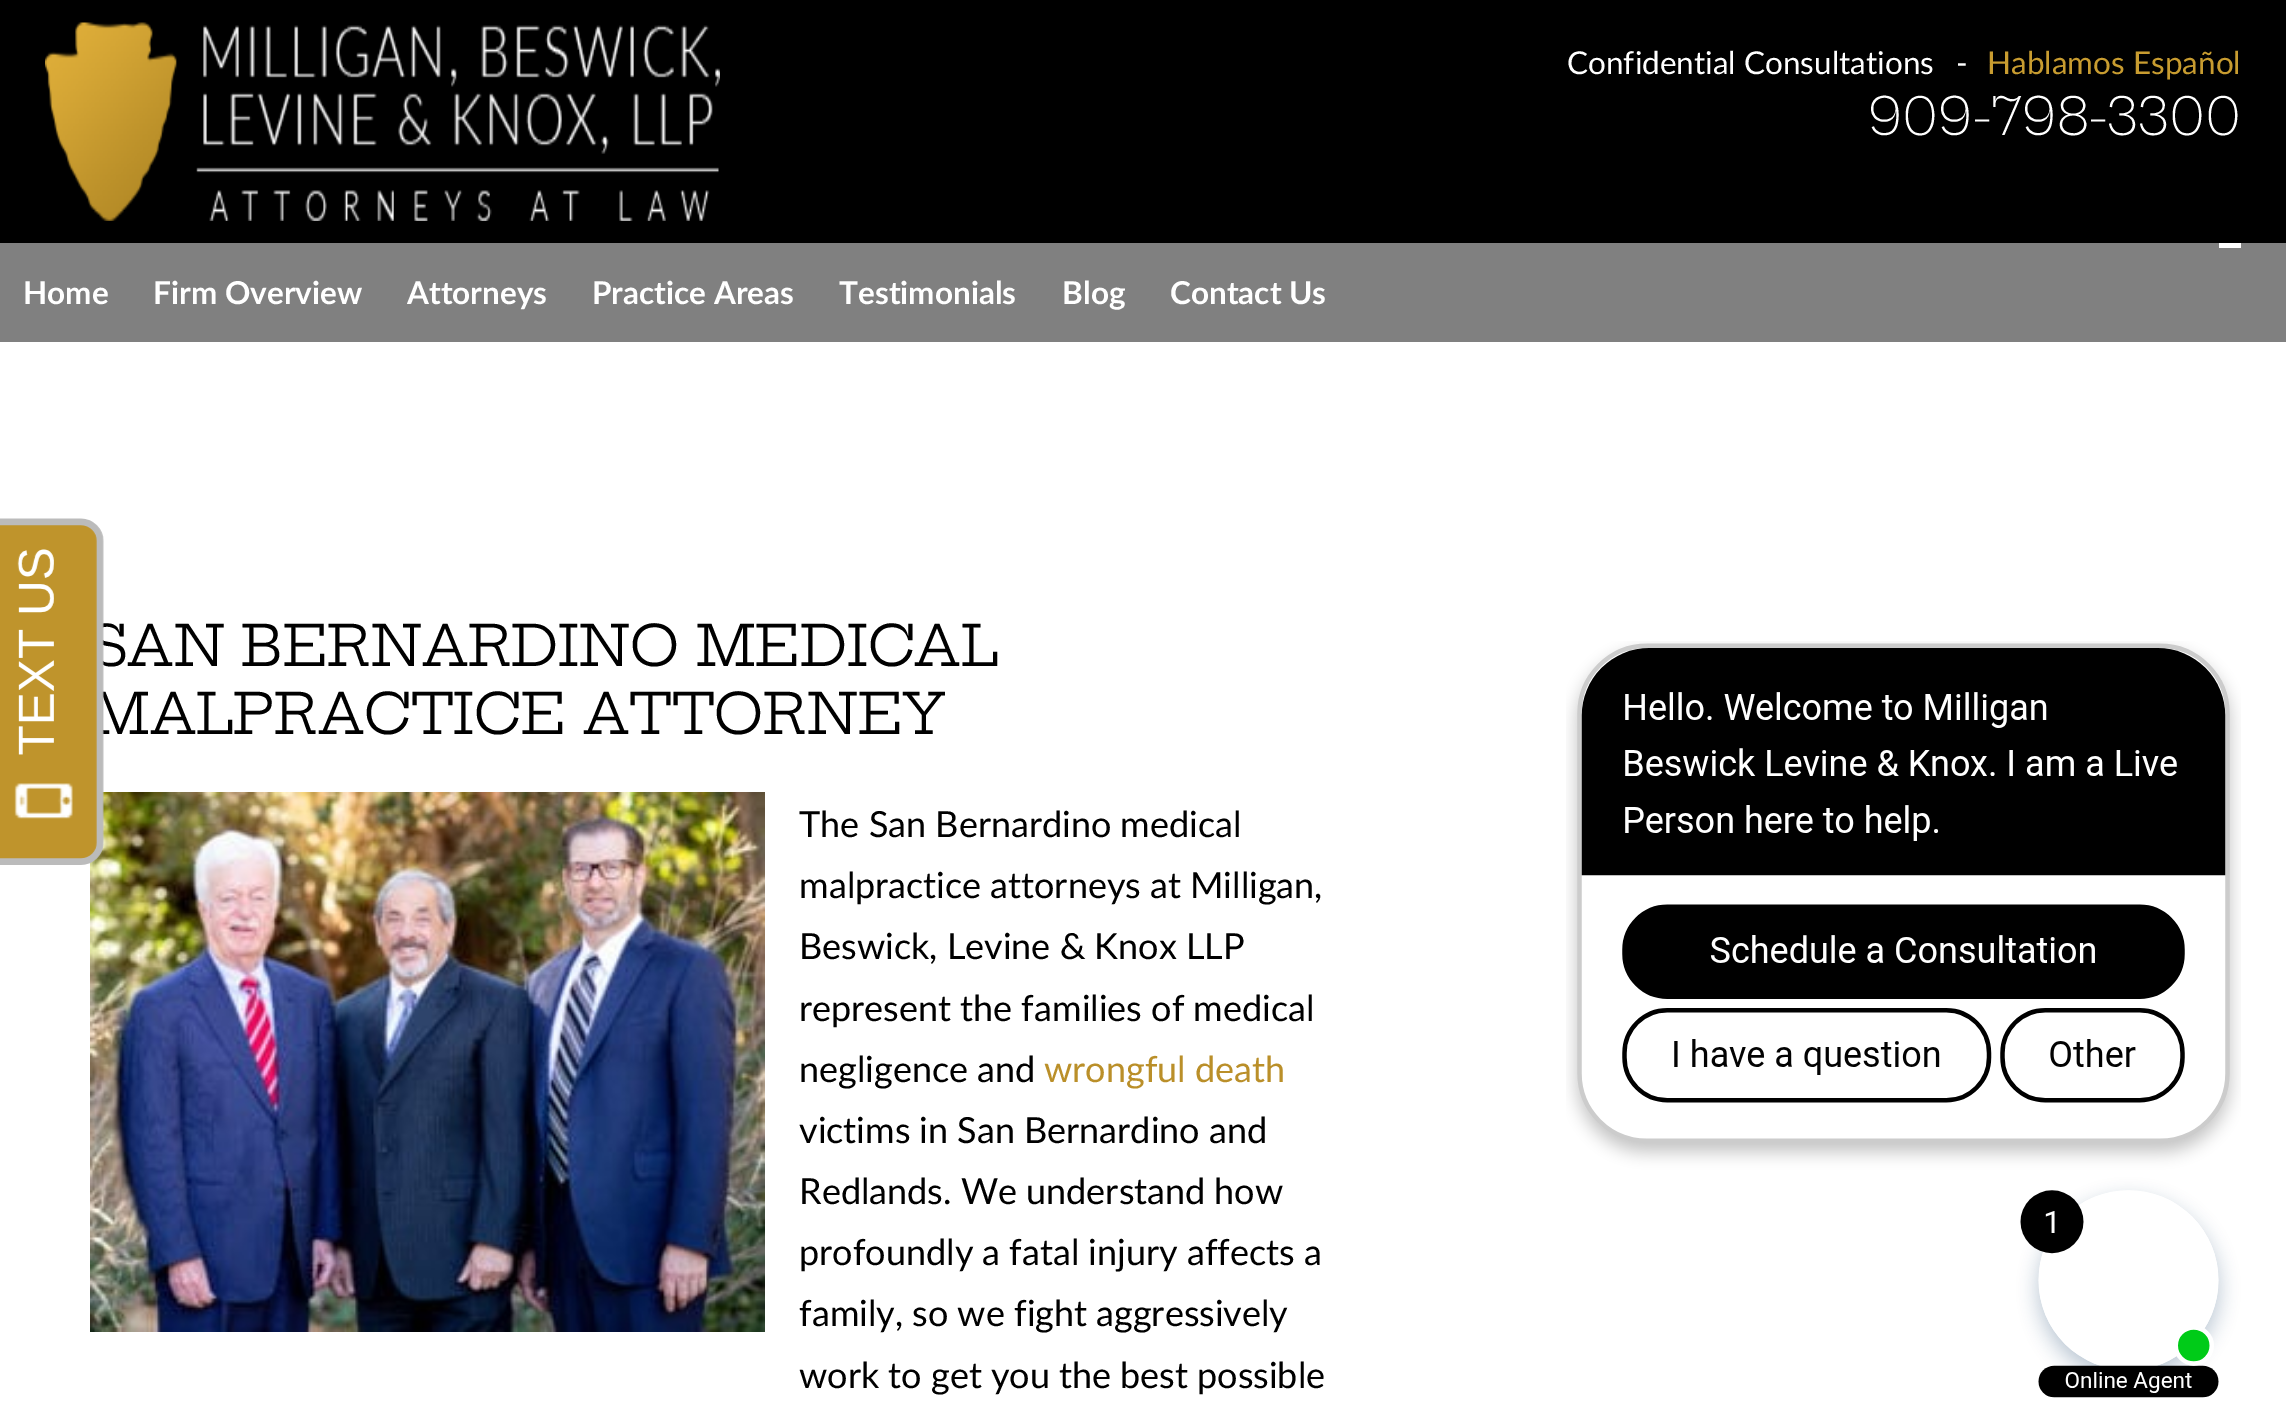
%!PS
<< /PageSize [2286 1424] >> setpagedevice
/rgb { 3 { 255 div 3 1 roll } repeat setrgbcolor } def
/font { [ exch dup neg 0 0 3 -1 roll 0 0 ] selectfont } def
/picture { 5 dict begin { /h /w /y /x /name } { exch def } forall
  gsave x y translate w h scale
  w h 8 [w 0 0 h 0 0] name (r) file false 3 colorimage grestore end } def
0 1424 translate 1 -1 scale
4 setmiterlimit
255 255 255 rgb
0 0 2286 1424 rectfill
0 0 0 rgb
0 0 2286 243 rectfill
(img/1.rgb) 45 22 675 199 picture
128 128 128 rgb
0 243 2286 99 rectfill
255 255 255 rgb
2219 243 22 5 rectfill
(img/2.rgb) 90 792 675 540 picture
(img/4.rgb) 1566 641 675 757 picture
/Lato-Regular 31.5 font
1567 74 moveto (Confidential Consultations) show
1956 74 moveto (-) show
200 156 48 rgb
1987 74 moveto (Hablamos Español) show
/HeptaSlab-Light 51.75 font
255 255 255 rgb
1868 135 moveto (909-798-3300) show
/Lato-Bold 31.5 font
[
  [(Home) 23 304]
  [(Firm Overview) 153 304]
  [(Attorneys) 407 304]
  [(Practice Areas) 592 304]
  [(Testimonials) 839 304]
  [(Blog) 1062 304]
  [(Contact Us) 1170 304]
] { aload pop moveto show } forall
/HeptaSlab-Regular 56.25 font
0 0 0 rgb
90 666 moveto (SAN BERNARDINO MEDICAL) show
90 734 moveto (MALPRACTICE ATTORNEY) show
/Lato-Regular 36 font
[
  [(The San Bernardino medical) 799 837]
  [(malpractice attorneys at Milligan,) 799 898]
  [(Beswick, Levine & Knox LLP) 799 959]
  [(represent the families of medical) 799 1021]
  [(negligence and) 799 1082]
] { aload pop moveto show } forall
186 143 41 rgb
1044 1082 moveto (wrongful death) show
0 0 0 rgb
[
  [(victims in San Bernardino and) 799 1143]
  [(Redlands. We understand how) 799 1204]
  [(profoundly a fatal injury affects a) 799 1265]
  [(family, so we fight aggressively) 799 1326]
  [(work to get you the best possible) 799 1388]
] { aload pop moveto show } forall
(img/3.rgb) 0 518 104 347 picture
showpage
